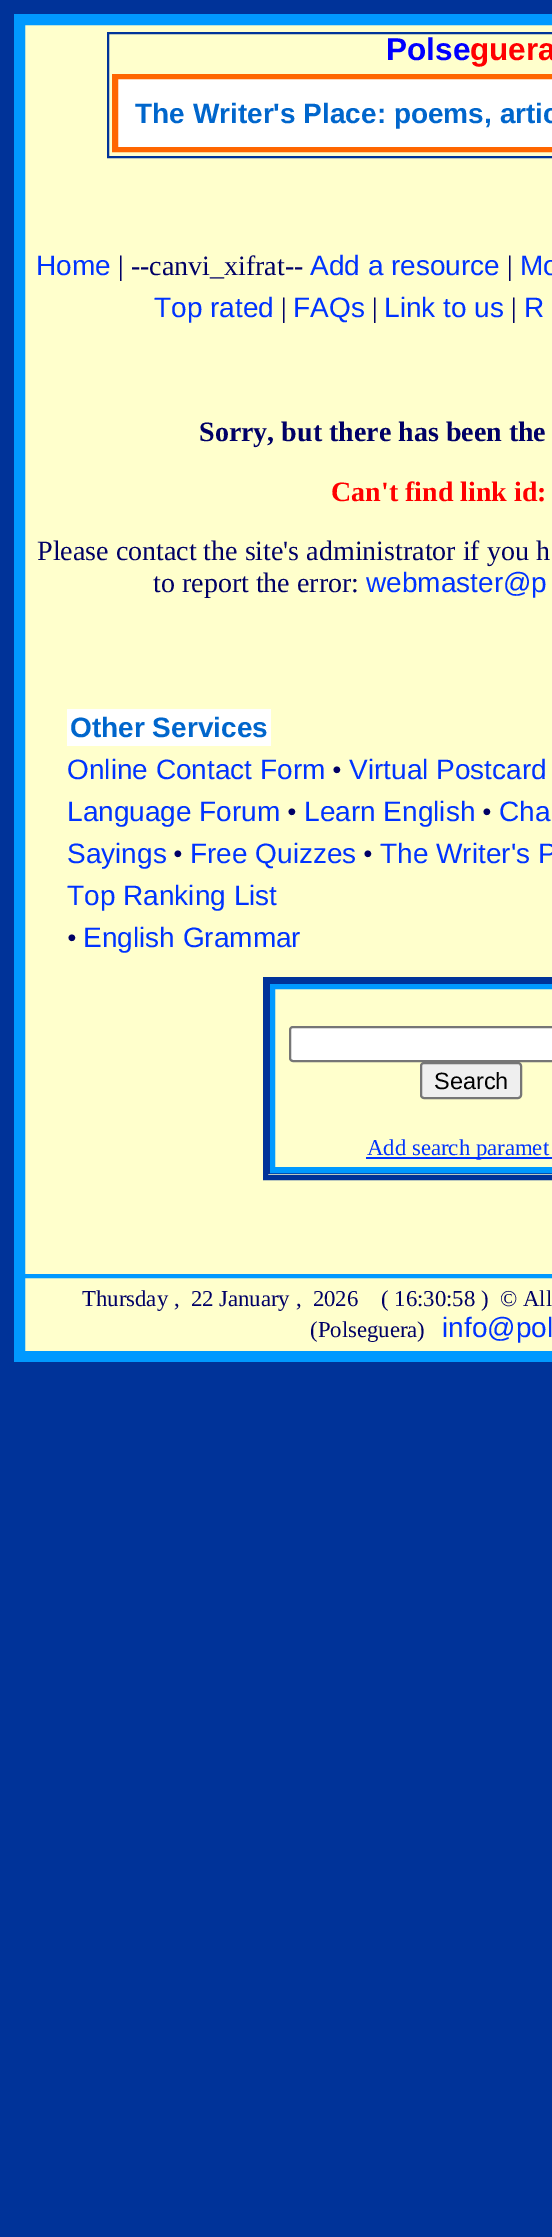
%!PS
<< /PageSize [552 2237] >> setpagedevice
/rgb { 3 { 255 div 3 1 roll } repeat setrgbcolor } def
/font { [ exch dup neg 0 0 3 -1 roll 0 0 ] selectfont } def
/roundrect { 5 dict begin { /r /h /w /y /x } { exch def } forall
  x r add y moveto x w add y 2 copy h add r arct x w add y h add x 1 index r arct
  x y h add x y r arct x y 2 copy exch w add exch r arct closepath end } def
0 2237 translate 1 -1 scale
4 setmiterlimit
0 51 153 rgb
0 0 552 2237 rectfill
0 153 255 rgb
14 14 538 1348 rectfill
255 255 204 rgb
25 25 527 1326 rectfill
0 153 255 rgb
2 setlinewidth
24 24 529 1251 rectstroke
0 51 153 rgb
108 33 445 124 rectstroke
255 255 255 rgb
118 79 434 68 rectfill
255 102 0 rgb
4 setlinewidth
114 76 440 74 rectstroke
2 setlinewidth
117 78 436 70 rectstroke
255 255 255 rgb
67 709 204 37 rectfill
0 51 153 rgb
5 setlinewidth
265.5 979.5 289 198 rectstroke
2 setlinewidth
269 983 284 190 rectstroke
0 153 255 rgb
4 setlinewidth
272 986 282 185 rectstroke
2 setlinewidth
274 988 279 180 rectstroke
255 255 255 rgb
290 1027 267 34 3 roundrect gsave fill grestore
118 118 118 rgb
stroke
239 239 239 rgb
421 1063 100 35 3 roundrect gsave fill grestore
118 118 118 rgb
stroke
0 51 255 rgb
366 1157 186 2 rectfill
0 153 255 rgb
24 1277 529 75 rectstroke
/LiberationSans-Bold 31.5 font
0 0 255 rgb
386 60 moveto (Polse) show
255 0 0 rgb
470 60 moveto (guera) show
/LiberationSans-Bold 28 font
0 102 204 rgb
135 123 moveto (The Writer's Place: poems, artic) show
/LiberationSans-Regular 28 font
0 51 255 rgb
36 275 moveto (Home) show
/LiberationSerif-Regular 28 font
0 0 102 rgb
118 275 moveto (| --canvi_xifrat--) show
/LiberationSans-Regular 28 font
0 51 255 rgb
310 275 moveto (Add a resource) show
/LiberationSerif-Regular 28 font
0 0 102 rgb
507 275 moveto (|) show
/LiberationSans-Regular 28 font
0 51 255 rgb
520 275 moveto (Mo) show
154 317 moveto (Top rated) show
/LiberationSerif-Regular 28 font
0 0 102 rgb
281 317 moveto (|) show
/LiberationSans-Regular 28 font
0 51 255 rgb
293 317 moveto (FAQs) show
/LiberationSerif-Regular 28 font
0 0 102 rgb
372 317 moveto (|) show
/LiberationSans-Regular 28 font
0 51 255 rgb
384 317 moveto (Link to us) show
/LiberationSerif-Regular 28 font
0 0 102 rgb
511 317 moveto (|) show
/LiberationSans-Regular 28 font
0 51 255 rgb
524 317 moveto (R) show
/LiberationSerif-Bold 28 font
0 0 102 rgb
199 441 moveto (Sorry, but there has been the) show
255 0 0 rgb
331 501 moveto (Can't find link id:) show
/LiberationSerif-Regular 28 font
0 0 102 rgb
37 560 moveto (Please contact the site's administrator if you h) show
153 592 moveto (to report the error:) show
/LiberationSans-Regular 28 font
0 51 255 rgb
366 592 moveto (webmaster@p) show
/LiberationSans-Bold 28 font
0 102 204 rgb
70 737 moveto (Other Services) show
/LiberationSans-Regular 28 font
0 51 255 rgb
67 779 moveto (Online Contact Form) show
/LiberationSerif-Regular 28 font
0 0 102 rgb
332 779 moveto (•) show
/LiberationSans-Regular 28 font
0 51 255 rgb
349 779 moveto (Virtual Postcard) show
67 821 moveto (Language Forum) show
/LiberationSerif-Regular 28 font
0 0 102 rgb
287 821 moveto (•) show
/LiberationSans-Regular 28 font
0 51 255 rgb
304 821 moveto (Learn English) show
/LiberationSerif-Regular 28 font
0 0 102 rgb
482 821 moveto (•) show
/LiberationSans-Regular 28 font
0 51 255 rgb
499 821 moveto (Cha) show
67 863 moveto (Sayings) show
/LiberationSerif-Regular 28 font
0 0 102 rgb
173 863 moveto (•) show
/LiberationSans-Regular 28 font
0 51 255 rgb
190 863 moveto (Free Quizzes) show
/LiberationSerif-Regular 28 font
0 0 102 rgb
363 863 moveto (•) show
/LiberationSans-Regular 28 font
0 51 255 rgb
380 863 moveto (The Writer's P) show
67 905 moveto (Top Ranking List) show
/LiberationSerif-Regular 28 font
0 0 102 rgb
67 947 moveto (•) show
/LiberationSans-Regular 28 font
0 51 255 rgb
83 947 moveto (English Grammar) show
/LiberationSans-Regular 23.5 font
0 0 0 rgb
434 1089 moveto (Search) show
/LiberationSerif-Regular 22.75 font
0 51 255 rgb
367 1155 moveto (Add search paramet) show
0 0 102 rgb
[
  [(Thursday ,  22 January ,  2026) 82 1306]
  [(\( 16:30:58 \)) 381 1306]
  [(© All) 500 1306]
  [(\(Polseguera\)) 310 1337]
] { aload pop moveto show } forall
/LiberationSans-Regular 28 font
0 51 255 rgb
442 1337 moveto (info@pol) show
showpage
